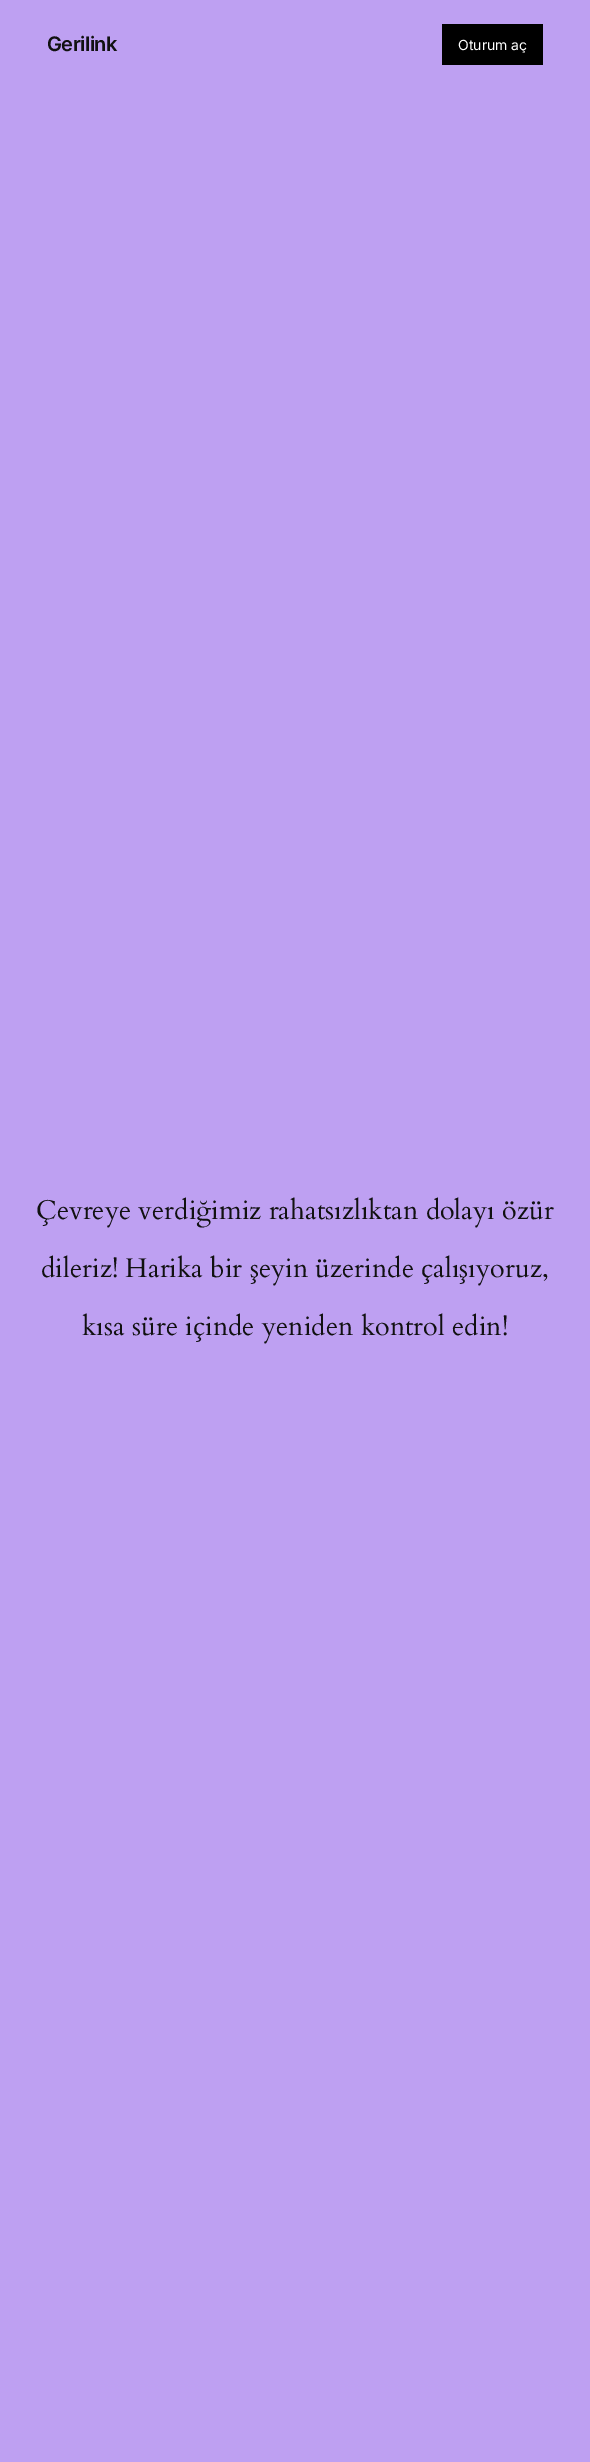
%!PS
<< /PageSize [590 2462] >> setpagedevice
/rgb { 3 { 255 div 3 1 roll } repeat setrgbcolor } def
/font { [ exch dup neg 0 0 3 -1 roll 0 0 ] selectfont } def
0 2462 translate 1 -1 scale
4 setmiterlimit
190 160 242 rgb
0 0 590 2462 rectfill
0 0 0 rgb
442 24 101 41 rectfill
/Inter-SemiBold 20 font
17 17 17 rgb
47 51 moveto -0.5 0 (Gerilink) ashow
/Inter-Regular 14 font
255 255 255 rgb
458 50 moveto (Oturum aç) show
/Cardo-Regular 27 font
17 17 17 rgb
[
  [(Çevreye verdiğimiz rahatsızlıktan dolayı özür) 36 1219]
  [(dileriz! Harika bir şeyin üzerinde çalışıyoruz,) 41 1277]
  [(kısa süre içinde yeniden kontrol edin!) 82 1335]
] { aload pop moveto show } forall
showpage
